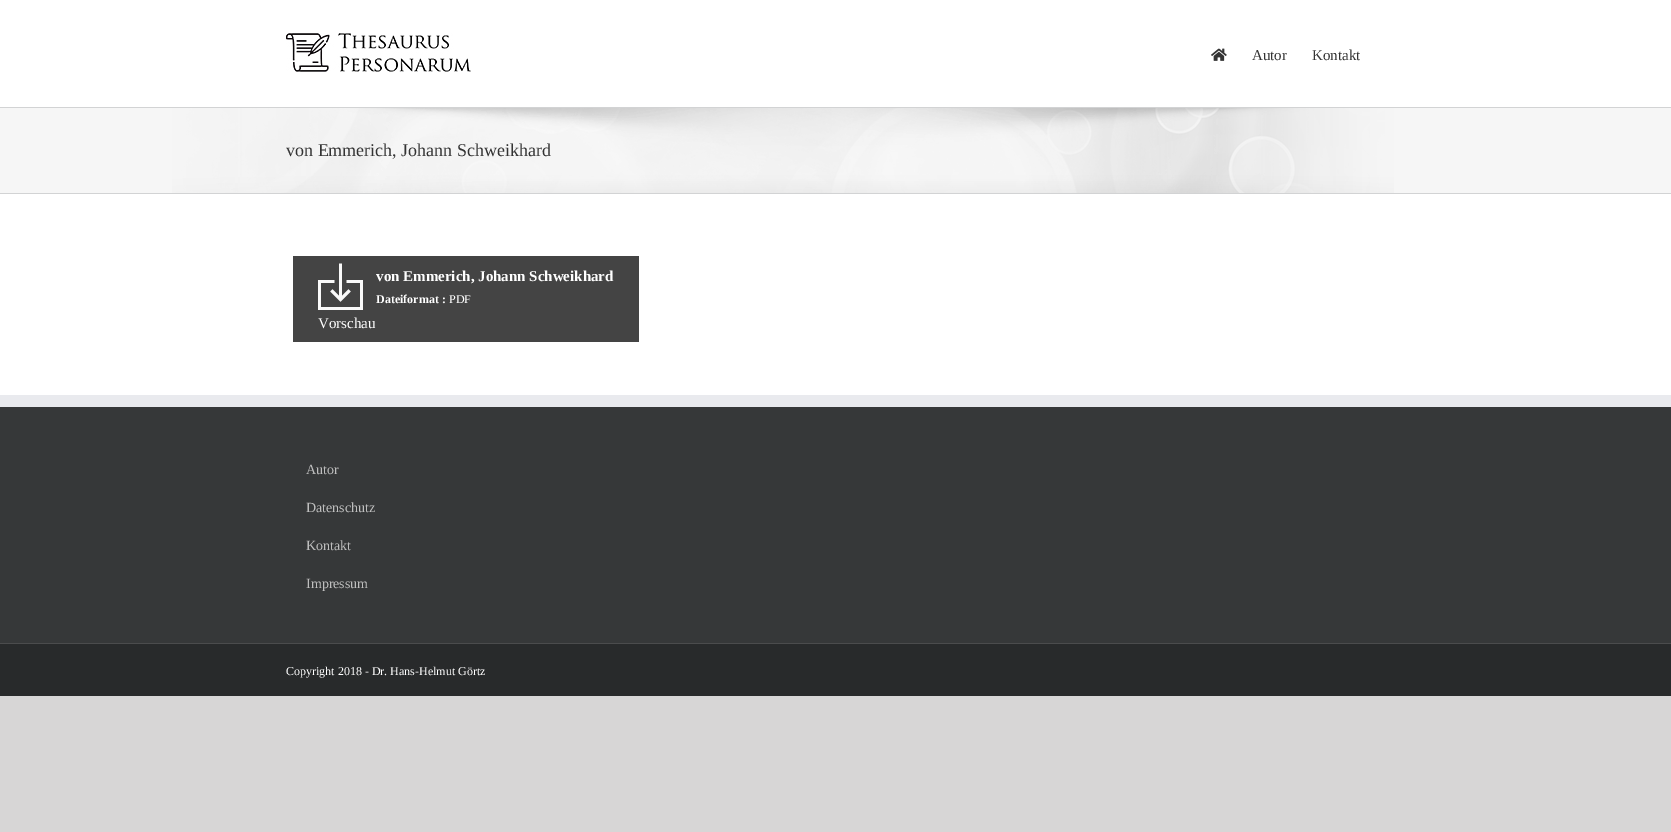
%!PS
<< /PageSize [1671 832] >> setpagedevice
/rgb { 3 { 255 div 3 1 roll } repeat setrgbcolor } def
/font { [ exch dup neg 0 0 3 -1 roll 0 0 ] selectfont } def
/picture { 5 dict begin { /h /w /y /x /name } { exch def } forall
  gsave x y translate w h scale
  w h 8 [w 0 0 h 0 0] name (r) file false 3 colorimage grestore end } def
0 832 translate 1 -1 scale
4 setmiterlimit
215 214 214 rgb
0 0 1671 832 rectfill
255 255 255 rgb
0 0 1671 395 rectfill
(img/1.rgb) 286 33 185 39 picture
(img/2.rgb) 1211 48 16 13 picture
246 246 246 rgb
0 108 1671 85 rectfill
(img/3.rgb) 172 108 1222 85 picture
[
  [0 107 1671 1 210 211 212]
  [0 193 1671 1 210 211 212]
  [293 256 346 86 68 68 68]
] { aload pop rgb rectfill } forall
(img/4.rgb) 318 263 45 47 picture
[
  [0 407 1671 236 54 56 57]
  [0 395 1671 12 233 234 238]
  [0 644 1671 52 40 42 43]
  [0 643 1671 1 75 76 77]
] { aload pop rgb rectfill } forall
/LiberationSerif-Regular 15 font
51 51 51 rgb
1252 60 moveto (Autor) show
1312 60 moveto (Kontakt) show
/LiberationSerif-Regular 18 font
286 156 moveto (von Emmerich, Johann Schweikhard) show
/LiberationSerif-Bold 15 font
255 255 255 rgb
376 281 moveto (von Emmerich, Johann Schweikhard) show
/LiberationSerif-Bold 12 font
376 303 moveto (Dateiformat :) show
/LiberationSerif-Regular 12 font
449 303 moveto (PDF) show
/LiberationSerif-Regular 15 font
318 328 moveto (Vorschau) show
/LiberationSerif-Regular 14 font
191 191 191 rgb
[
  [(Autor) 306 474]
  [(Datenschutz) 306 512]
  [(Kontakt) 306 550]
  [(Impressum) 306 588]
] { aload pop moveto show } forall
/LiberationSerif-Regular 12 font
255 255 255 rgb
286 675 moveto (Copyright 2018 - Dr. Hans-Helmut Görtz) show
showpage
